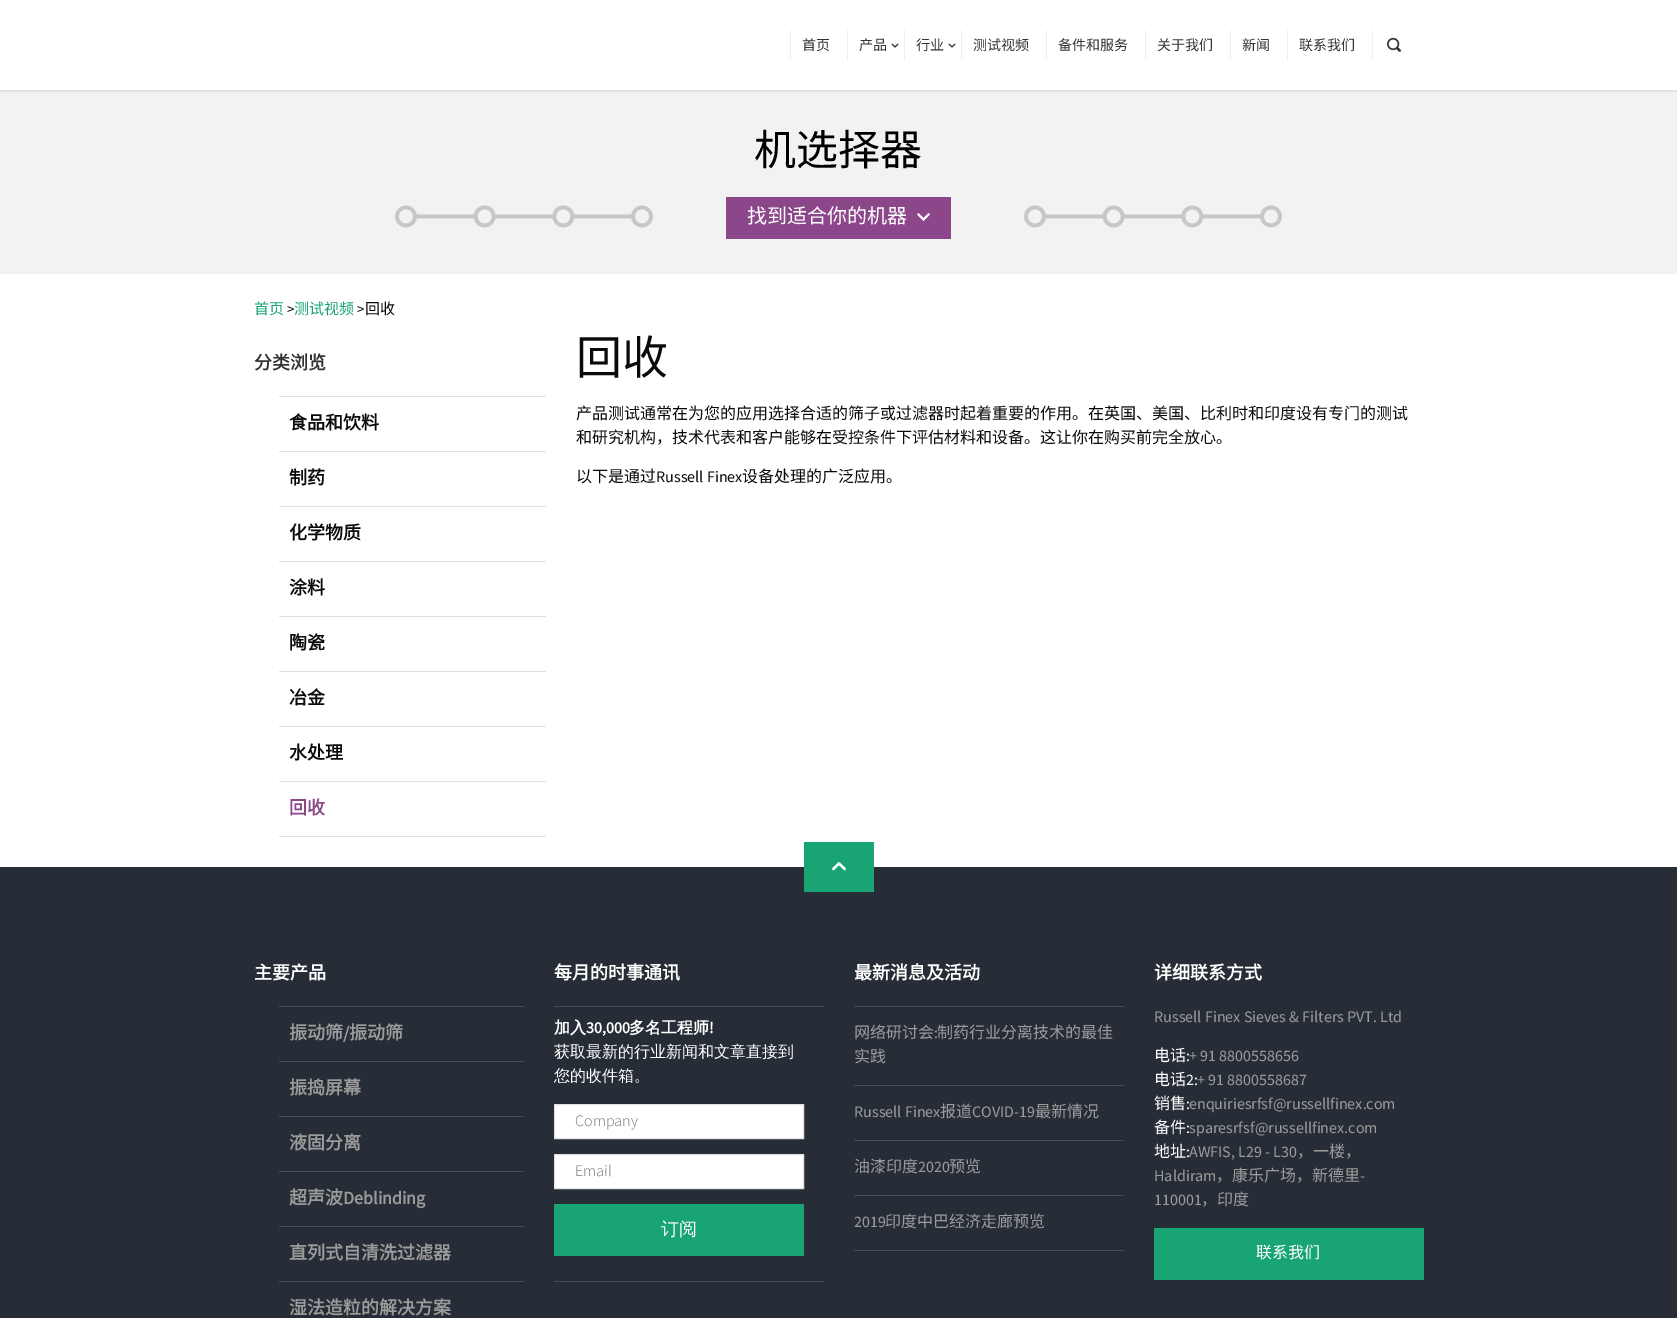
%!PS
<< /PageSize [1677 1318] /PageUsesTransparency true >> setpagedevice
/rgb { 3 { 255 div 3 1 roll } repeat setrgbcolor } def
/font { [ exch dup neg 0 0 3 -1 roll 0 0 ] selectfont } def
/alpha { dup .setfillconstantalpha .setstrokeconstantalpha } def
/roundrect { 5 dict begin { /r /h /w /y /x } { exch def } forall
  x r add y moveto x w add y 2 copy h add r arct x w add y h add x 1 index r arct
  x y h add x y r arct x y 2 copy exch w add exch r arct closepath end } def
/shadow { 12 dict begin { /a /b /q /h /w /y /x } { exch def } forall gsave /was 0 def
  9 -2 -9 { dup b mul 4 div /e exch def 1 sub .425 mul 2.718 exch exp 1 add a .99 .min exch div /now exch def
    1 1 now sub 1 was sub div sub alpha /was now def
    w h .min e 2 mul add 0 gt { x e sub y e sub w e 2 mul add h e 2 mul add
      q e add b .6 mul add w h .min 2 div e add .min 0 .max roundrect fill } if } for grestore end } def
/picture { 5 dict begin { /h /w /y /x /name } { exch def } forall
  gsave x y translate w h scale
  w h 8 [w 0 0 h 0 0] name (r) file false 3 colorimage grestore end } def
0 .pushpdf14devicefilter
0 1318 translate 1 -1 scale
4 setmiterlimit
255 255 255 rgb
0 0 1677 1318 rectfill
242 242 242 rgb
0 90 1677 184 rectfill
0 0 0 rgb
0 1 1677 90 0 1.5 0.11 shadow
[
  [0 0 1677 90 255 255 255]
  [790 30 1 30 238 238 238]
  [847 30 1 30 238 238 238]
] { aload pop rgb rectfill } forall
(img/1.rgb) 891 43 8 5 picture
904 30 1 30 rectfill
(img/1.rgb) 948 43 8 5 picture
[
  [961 30 1 30 238 238 238]
  [1046 30 1 30 238 238 238]
  [1145 30 1 30 238 238 238]
  [1230 30 1 30 238 238 238]
  [1287 30 1 30 238 238 238]
  [1372 30 1 30 238 238 238]
] { aload pop rgb rectfill } forall
(img/2.rgb) 1387 37 14 15 picture
(img/3.rgb) 395 205 887 23 picture
139 71 137 rgb
726 197 225 42 rectfill
(img/4.rgb) 917 213 13 8 picture
[
  [279 396 267 1 224 224 224]
  [279 451 267 1 224 224 224]
  [279 506 267 1 224 224 224]
  [279 561 267 1 224 224 224]
  [279 616 267 1 224 224 224]
  [279 671 267 1 224 224 224]
  [279 726 267 1 224 224 224]
  [279 781 267 1 224 224 224]
  [279 836 267 1 224 224 224]
  [0 867 1677 451 39 45 54]
  [804 842 70 50 25 164 116]
] { aload pop rgb rectfill } forall
(img/5.rgb) 832 862 14 9 picture
[
  [279 1006 245 1 74 78 84]
  [279 1061 245 1 74 78 84]
  [279 1116 245 1 74 78 84]
  [279 1171 245 1 74 78 84]
  [279 1226 245 1 74 78 84]
  [279 1281 245 1 74 78 84]
  [554 1006 270 1 73 78 84]
  [554 1281 270 1 73 78 84]
] { aload pop rgb rectfill } forall
255 255 255 rgb
554.5 1104.5 moveto 803.5 1104.5 lineto 803.5 1138.5 lineto 554.5 1138.5 lineto closepath gsave fill grestore
225 225 225 rgb
stroke
255 255 255 rgb
554.5 1154.5 moveto 803.5 1154.5 lineto 803.5 1188.5 lineto 554.5 1188.5 lineto closepath gsave fill grestore
225 225 225 rgb
stroke
[
  [554 1204 250 52 25 164 116]
  [854 1006 270 1 73 78 84]
  [854 1085 270 1 73 78 84]
  [854 1140 270 1 73 78 84]
  [854 1195 270 1 73 78 84]
  [854 1250 270 1 73 78 84]
  [1154 1228 270 52 25 164 116]
] { aload pop rgb rectfill } forall
/NotoSansCJKSC-Regular 14 font
51 51 51 rgb
[
  [(首页) 802 50]
  [(产品) 859 50]
  [(行业) 916 50]
  [(测试视频) 973 50]
  [(备件和服务) 1058 50]
  [(关于我们) 1157 50]
  [(新闻) 1242 50]
  [(联系我们) 1299 50]
] { aload pop moveto show } forall
/NotoSansCJKSC-Regular 42 font
0 0 0 rgb
754 165 moveto (机选择器) show
/NotoSansCJKSC-Regular 20 font
255 255 255 rgb
747 223 moveto (找到适合你的机器) show
/NotoSansCJKSC-Regular 15 font
25 164 116 rgb
254 314 moveto (首页) show
/SourceSansPro-Regular 15 font
10 10 10 rgb
287 314 moveto (>) show
/NotoSansCJKSC-Regular 15 font
25 164 116 rgb
294 314 moveto (测试视频) show
/SourceSansPro-Regular 15 font
10 10 10 rgb
357 314 moveto (>) show
/NotoSansCJKSC-Regular 15 font
365 314 moveto (回收) show
/NotoSansCJKSC-Bold 18 font
51 51 51 rgb
254 369 moveto (分类浏览) show
10 10 10 rgb
[
  [(食品和饮料) 289 429]
  [(制药) 289 484]
  [(化学物质) 289 539]
  [(涂料) 289 594]
  [(陶瓷) 289 649]
  [(冶金) 289 704]
  [(水处理) 289 759]
] { aload pop moveto show } forall
139 71 137 rgb
289 814 moveto (回收) show
/NotoSansCJKSC-Regular 46 font
10 10 10 rgb
576 374 moveto (回收) show
/NotoSansCJKSC-Regular 16 font
[
  [(产品测试通常在为您的应用选择合适的筛子或过滤器时起着重要的作用。在英国、美国、比利时和印度设有专门的测试) 576 419]
  [(和研究机构，技术代表和客户能够在受控条件下评估材料和设备。这让你在购买前完全放心。) 576 443]
  [(以下是通过) 576 482]
] { aload pop moveto show } forall
/SourceSansPro-Regular 16 font
656 482 moveto (Russell Finex) show
/NotoSansCJKSC-Regular 16 font
742 482 moveto (设备处理的广泛应用。) show
/NotoSansCJKSC-Bold 18 font
255 255 255 rgb
254 979 moveto (主要产品) show
155 155 155 rgb
289 1039 moveto (振动筛) show
/SourceSansPro-Bold 18 font
343 1039 moveto (/) show
/NotoSansCJKSC-Bold 18 font
[
  [(振动筛) 349 1039]
  [(振捣屏幕) 289 1094]
  [(液固分离) 289 1149]
  [(超声波) 289 1204]
] { aload pop moveto show } forall
/SourceSansPro-Bold 18 font
343 1204 moveto (Deblinding) show
/NotoSansCJKSC-Bold 18 font
289 1259 moveto (直列式自清洗过滤器) show
289 1314 moveto (湿法造粒的解决方案) show
255 255 255 rgb
554 979 moveto (每月的时事通讯) show
/WenQuanYiZenHei-Bold 16 font
554 1033 moveto (加入) show
/SourceSansPro-Bold 16 font
586 1033 moveto (30,000) show
/WenQuanYiZenHei-Bold 16 font
629 1033 moveto (多名工程师) show
/SourceSansPro-Bold 16 font
709 1033 moveto (!) show
/WenQuanYiZenHei-Medium 16 font
554 1057 moveto (获取最新的行业新闻和文章直接到) show
554 1081 moveto (您的收件箱。) show
/SourceSansPro-Light 16 font
117 117 117 rgb
575 1126 moveto (Company) show
575 1176 moveto (Email) show
/WenQuanYiZenHei-Medium 18 font
255 255 255 rgb
661 1235 moveto (订阅) show
/NotoSansCJKSC-Bold 18 font
854 979 moveto (最新消息及活动) show
/NotoSansCJKSC-Regular 16 font
155 155 155 rgb
854 1038 moveto (网络研讨会) show
/SourceSansPro-Regular 16 font
934 1038 moveto (:) show
/NotoSansCJKSC-Regular 16 font
937 1038 moveto (制药行业分离技术的最佳) show
854 1062 moveto (实践) show
/SourceSansPro-Regular 16 font
854 1117 moveto (Russell Finex) show
/NotoSansCJKSC-Regular 16 font
940 1117 moveto (报道) show
/SourceSansPro-Regular 16 font
972 1117 moveto (COVID-19) show
/NotoSansCJKSC-Regular 16 font
1035 1117 moveto (最新情况) show
854 1172 moveto (油漆印度) show
/SourceSansPro-Regular 16 font
918 1172 moveto (2020) show
/NotoSansCJKSC-Regular 16 font
949 1172 moveto (预览) show
/SourceSansPro-Regular 16 font
854 1227 moveto (2019) show
/NotoSansCJKSC-Regular 16 font
885 1227 moveto (印度中巴经济走廊预览) show
/NotoSansCJKSC-Bold 18 font
255 255 255 rgb
1154 979 moveto (详细联系方式) show
/SourceSansPro-Regular 16 font
155 155 155 rgb
1154 1022 moveto (Russell Finex Sieves & Filters PVT. Ltd) show
/NotoSansCJKSC-Regular 16 font
255 255 255 rgb
1154 1061 moveto (电话) show
/SourceSansPro-Regular 16 font
1186 1061 moveto (:) show
155 155 155 rgb
1189 1061 moveto (+ 91 8800558656) show
/NotoSansCJKSC-Regular 16 font
255 255 255 rgb
1154 1085 moveto (电话) show
/SourceSansPro-Regular 16 font
1186 1085 moveto (2:) show
155 155 155 rgb
1197 1085 moveto (+ 91 8800558687) show
/NotoSansCJKSC-Regular 16 font
255 255 255 rgb
1154 1109 moveto (销售) show
/SourceSansPro-Regular 16 font
1186 1109 moveto (:) show
155 155 155 rgb
1189 1109 moveto (enquiriesrfsf@russellfinex.com) show
/NotoSansCJKSC-Regular 16 font
255 255 255 rgb
1154 1133 moveto (备件) show
/SourceSansPro-Regular 16 font
1186 1133 moveto (:) show
155 155 155 rgb
1189 1133 moveto (sparesrfsf@russellfinex.com) show
/NotoSansCJKSC-Regular 16 font
255 255 255 rgb
1154 1157 moveto (地址) show
/SourceSansPro-Regular 16 font
1186 1157 moveto (:) show
155 155 155 rgb
1189 1157 moveto (AWFIS, L29 - L30) show
/NotoSansCJKSC-Regular 16 font
1297 1157 moveto (，一楼，) show
/SourceSansPro-Regular 16 font
1154 1181 moveto (Haldiram) show
/NotoSansCJKSC-Regular 16 font
1216 1181 moveto (，康乐广场，新德里) show
/SourceSansPro-Regular 16 font
1360 1181 moveto (-) show
1154 1205 moveto (110001) show
/NotoSansCJKSC-Regular 16 font
1201 1205 moveto (，印度) show
255 255 255 rgb
1256 1258 moveto (联系我们) show
.poppdf14devicefilter showpage
